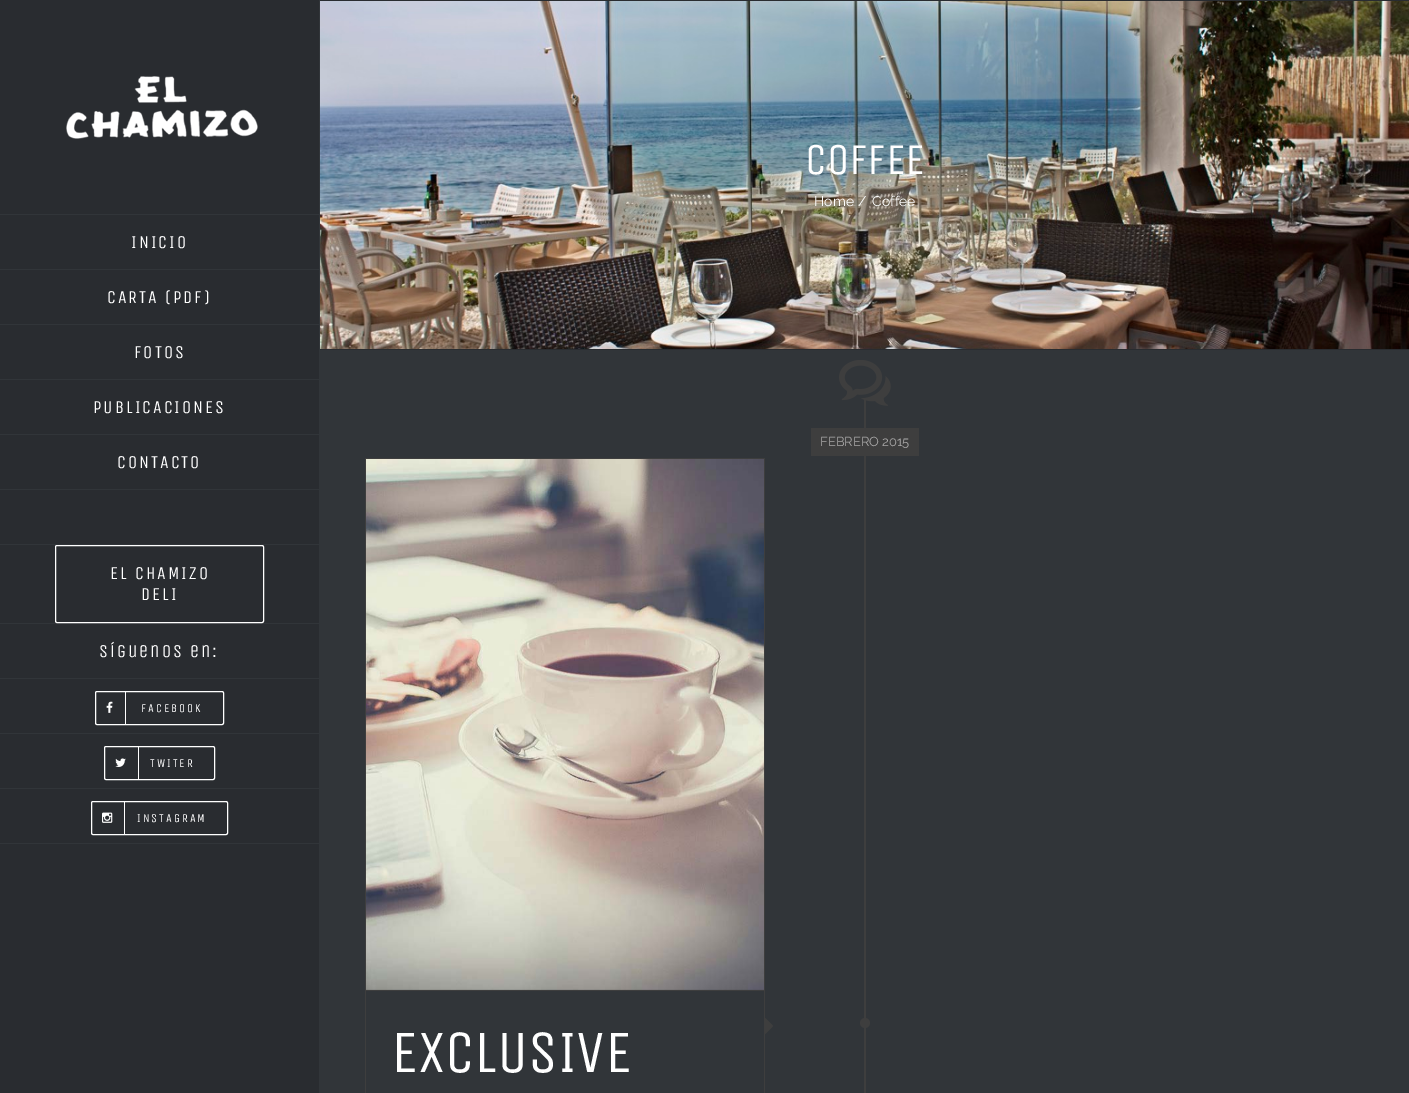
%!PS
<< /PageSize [1409 1093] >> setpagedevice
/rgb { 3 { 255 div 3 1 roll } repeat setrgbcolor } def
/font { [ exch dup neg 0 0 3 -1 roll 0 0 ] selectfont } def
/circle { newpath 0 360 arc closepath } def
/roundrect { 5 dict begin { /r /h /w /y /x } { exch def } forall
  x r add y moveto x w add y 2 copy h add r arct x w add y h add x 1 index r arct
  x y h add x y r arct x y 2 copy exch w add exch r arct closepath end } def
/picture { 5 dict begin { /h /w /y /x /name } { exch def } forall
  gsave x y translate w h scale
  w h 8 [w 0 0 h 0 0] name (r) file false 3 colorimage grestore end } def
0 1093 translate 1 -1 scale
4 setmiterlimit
49 53 57 rgb
0 0 1409 1093 rectfill
(img/1.rgb) 320 1 1089 348 picture
[
  [320 0 1089 1 41 44 48]
  [320 349 1089 1 41 44 48]
  [0 0 319 1093 41 44 48]
] { aload pop rgb rectfill } forall
(img/2.rgb) 66 76 192 63 picture
[
  [0 214 319 1 49 53 57]
  [0 269 319 1 49 53 57]
  [0 324 319 1 49 53 57]
  [0 379 319 1 49 53 57]
  [0 434 319 1 49 53 57]
  [0 489 319 1 49 53 57]
  [0 544 319 1 49 53 57]
  [0 623 319 1 49 53 57]
] { aload pop rgb rectfill } forall
255 255 255 rgb
55.5 545.5 208 77 1.5 roundrect stroke
49 53 57 rgb
0 678 319 1 rectfill
0 733 319 1 rectfill
255 255 255 rgb
95.5 691.5 128 33 1.5 roundrect stroke
125 692 1 32 rectfill
(img/3.rgb) 106 701 7 12 picture
49 53 57 rgb
0 788 319 1 rectfill
255 255 255 rgb
104.5 746.5 110 33 1.5 roundrect stroke
138 747 1 32 rectfill
(img/4.rgb) 115 758 11 9 picture
49 53 57 rgb
0 843 319 1 rectfill
255 255 255 rgb
91.5 801.5 136 33 1.5 roundrect stroke
124 802 1 32 rectfill
(img/5.rgb) 102 812 11 11 picture
(img/6.rgb) 839 360 52 46 picture
[
  [864 398 2 695 62 62 62]
  [811 428 108 28 62 62 62]
  [365 458 400 1 62 62 62]
  [764 458 1 635 62 62 62]
  [365 458 1 635 62 62 62]
  [366 990 398 1 62 62 62]
] { aload pop rgb rectfill } forall
(img/7.rgb) 366 459 398 531 picture
(img/8.rgb) 765 1018 8 16 picture
865 1023 5 circle fill
/UnicaOne-Regular 44 font
255 255 255 rgb
805 174 moveto (COFFEE) show
/Raleway-Regular 14 font
[
  [(Home) 814 206]
  [(/) 858 206]
  [(Coffee) 872 206]
] { aload pop moveto show } forall
/UnicaOne-Regular 18 font
131 248 moveto 2 0 (INICIO) ashow
107 303 moveto 2 0 (CARTA \(pdf\)) ashow
134 358 moveto 2 0 (FOTOS) ashow
93 413 moveto 2 0 (PUBLICACIONES) ashow
117 468 moveto 2 0 (CONTACTO) ashow
110 579 moveto 2 0 (EL CHAMIZO) ashow
141 600 moveto 2 0 (DELI) ashow
99 657 moveto 2 0 (Síguenos en:) ashow
/UnicaOne-Regular 12 font
141 712 moveto 2 0 (FACEBOOK) ashow
150 767 moveto 2 0 (TWITER) ashow
137 822 moveto 2 0 (INSTAGRAM) ashow
/Raleway-Regular 13 font
170 169 169 rgb
820 446 moveto (FEBRERO 2015) show
/UnicaOne-Regular 60 font
255 255 255 rgb
391 1072 moveto (EXCLUSIVE) show
showpage
